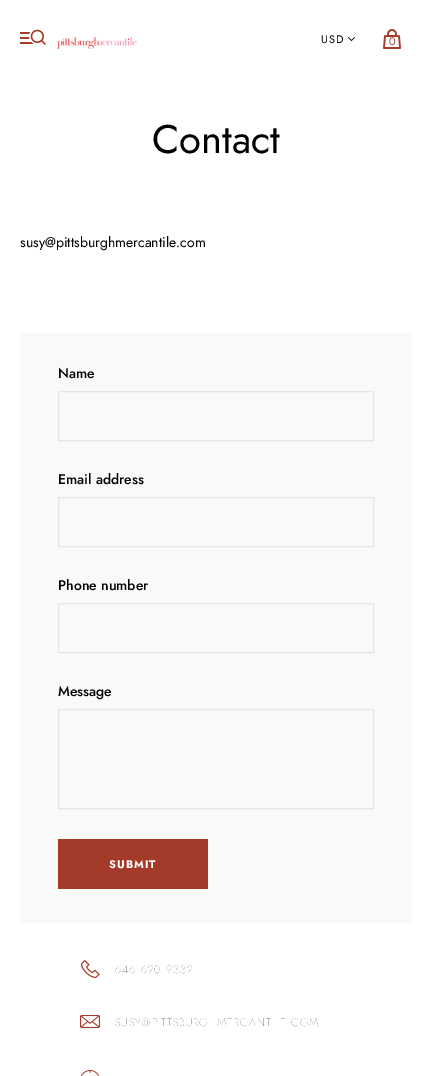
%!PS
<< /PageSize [432 1076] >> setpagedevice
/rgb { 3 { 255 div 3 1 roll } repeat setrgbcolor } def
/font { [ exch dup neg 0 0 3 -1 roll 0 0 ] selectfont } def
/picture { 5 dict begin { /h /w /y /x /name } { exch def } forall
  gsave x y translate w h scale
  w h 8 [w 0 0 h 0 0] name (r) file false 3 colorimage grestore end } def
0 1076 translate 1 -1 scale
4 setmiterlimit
255 255 255 rgb
0 0 432 1076 rectfill
(img/1.rgb) 20 29 26 16 picture
(img/2.rgb) 57 37 80 12 picture
0 0 0 rgb
351 40.5 moveto 354.5 37 lineto 355 37.5 lineto 351.5 41 lineto closepath fill
348 37.5 moveto 348.5 37 lineto 352 40.5 lineto 351.5 41 lineto closepath fill
(img/3.rgb) 383 29 18 20 picture
249 249 249 rgb
20 333 392 590 rectfill
230 230 230 rgb
58.5 391.5 315 49 rectstroke
58.5 497.5 315 49 rectstroke
58.5 603.5 315 49 rectstroke
58.5 709.5 315 99 rectstroke
164 58 42 rgb
58 839 150 50 rectfill
(img/4.rgb) 81 960 19 18 picture
(img/5.rgb) 80 1015 20 13 picture
(img/6.rgb) 80 1070 20 6 picture
/Jost-Regular 11 font
0 0 0 rgb
321 43 moveto 1 0 (USD) ashow
164 58 42 rgb
389 45 moveto (0) show
/Jost-Regular 40 font
0 0 0 rgb
152 153 moveto (Contact) show
/Jost-Regular 14 font
20 247 moveto (susy@pittsburghmercantile.com) show
/Jost-Medium 14 font
[
  [(Name) 58 378]
  [(Email address) 58 484]
  [(Phone number) 58 590]
  [(Message) 58 696]
] { aload pop moveto show } forall
/Jost-Bold 11 font
255 255 255 rgb
109 868 moveto 1 0 (SUBMIT) ashow
/Jost-Thin 11 font
0 0 0 rgb
115 973 moveto 1.1 0 (646 620 9332) ashow
115 1026 moveto 1.1 0 (SUSY@PITTSBURGHMERCANTILE.COM) ashow
showpage
